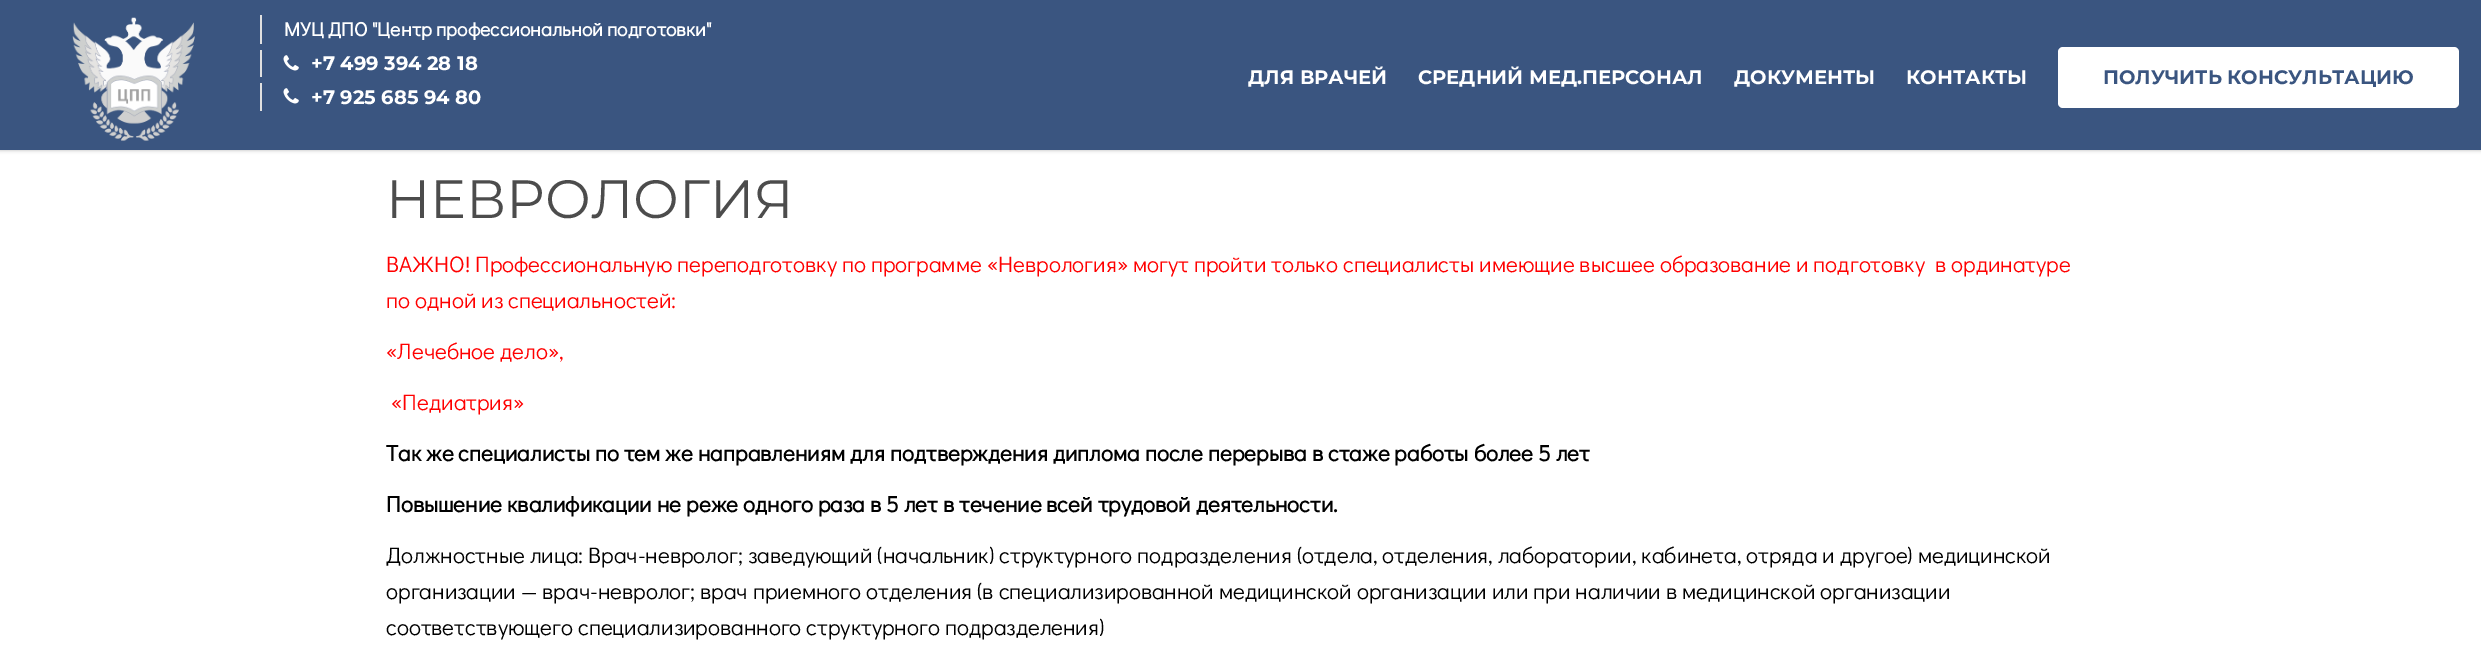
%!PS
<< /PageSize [2481 662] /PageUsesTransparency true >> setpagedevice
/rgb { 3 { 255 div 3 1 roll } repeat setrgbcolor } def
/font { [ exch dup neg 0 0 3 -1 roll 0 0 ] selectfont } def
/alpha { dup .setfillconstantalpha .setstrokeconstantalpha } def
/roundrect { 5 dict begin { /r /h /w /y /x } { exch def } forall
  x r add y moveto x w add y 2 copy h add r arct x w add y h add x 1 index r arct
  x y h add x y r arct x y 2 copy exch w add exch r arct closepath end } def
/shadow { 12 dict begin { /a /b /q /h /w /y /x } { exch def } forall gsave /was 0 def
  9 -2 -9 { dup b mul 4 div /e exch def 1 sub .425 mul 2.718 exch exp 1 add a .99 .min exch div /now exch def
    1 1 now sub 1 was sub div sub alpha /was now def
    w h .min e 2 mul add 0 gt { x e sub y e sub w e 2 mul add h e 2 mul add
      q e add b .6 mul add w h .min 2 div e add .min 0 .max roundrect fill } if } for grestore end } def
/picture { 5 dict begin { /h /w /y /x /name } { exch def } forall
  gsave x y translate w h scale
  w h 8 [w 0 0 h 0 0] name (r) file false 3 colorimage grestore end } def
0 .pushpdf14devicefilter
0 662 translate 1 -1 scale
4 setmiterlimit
255 255 255 rgb
0 0 2481 662 rectfill
0 0 0 rgb
0 0 2481 150 0 2 0.3 shadow
58 85 128 rgb
0 0 2481 150 rectfill
(img/1.rgb) 72 17 123 124 picture
224 224 224 rgb
260 15 2 29 rectfill
260 50 2 27 rectfill
(img/2.rgb) 283 55 16 16 picture
260 83 2 28 rectfill
(img/2.rgb) 283 88 16 16 picture
255 255 255 rgb
2058 47 401 61 5 roundrect fill
/DidactGothic-Bold 19.5 font
284 36 moveto (МУЦ ДПО "Центр профессиональной подготовки") show
/Montserrat-Bold 19.5 font
[
  [(+7 499 394 28 18) 311 70]
  [(+7 925 685 94 80) 311 104]
  [(ДЛЯ ВРАЧЕЙ) 1248 84]
  [(CРЕДНИЙ МЕД.ПЕРСОНАЛ) 1418 84]
  [(ДОКУМЕНТЫ) 1734 84]
  [(КОНТАКТЫ) 1906 84]
] { aload pop moveto show } forall
58 85 128 rgb
2103 84 moveto (ПОЛУЧИТЬ КОНСУЛЬТАЦИЮ) show
/Montserrat-Regular 54 font
76 76 76 rgb
386 218 moveto (НЕВРОЛОГИЯ) show
/DidactGothic-Regular 22.5 font
255 0 0 rgb
[
  [(ВАЖНО! Профессиональную переподготовку по программе «Неврология» могут пройти только специалисты имеющие высшее образование и подготовку  в ординатуре) 386 272]
  [(по одной из специальностей:) 386 308]
  [(«Лечебное дело»,) 386 359]
  [(«Педиатрия») 391 410]
] { aload pop moveto show } forall
/DidactGothic-Bold 22.5 font
0 0 0 rgb
386 461 moveto (Так же специалисты по тем же направлениям для подтверждения диплома после перерыва в стаже работы более 5 лет) show
386 512 moveto (Повышение квалификации не реже одного раза в 5 лет в течение всей трудовой деятельности.) show
/DidactGothic-Regular 22.5 font
[
  [(Должностные лица: Врач-невролог; заведующий \(начальник\) структурного подразделения \(отдела, отделения, лаборатории, кабинета, отряда и другое\) медицинской) 386 563]
  [(организации — врач-невролог; врач приемного отделения \(в специализированной медицинской организации или при наличии в медицинской организации) 386 599]
  [(соответствующего специализированного структурного подразделения\)) 386 635]
] { aload pop moveto show } forall
.poppdf14devicefilter showpage
